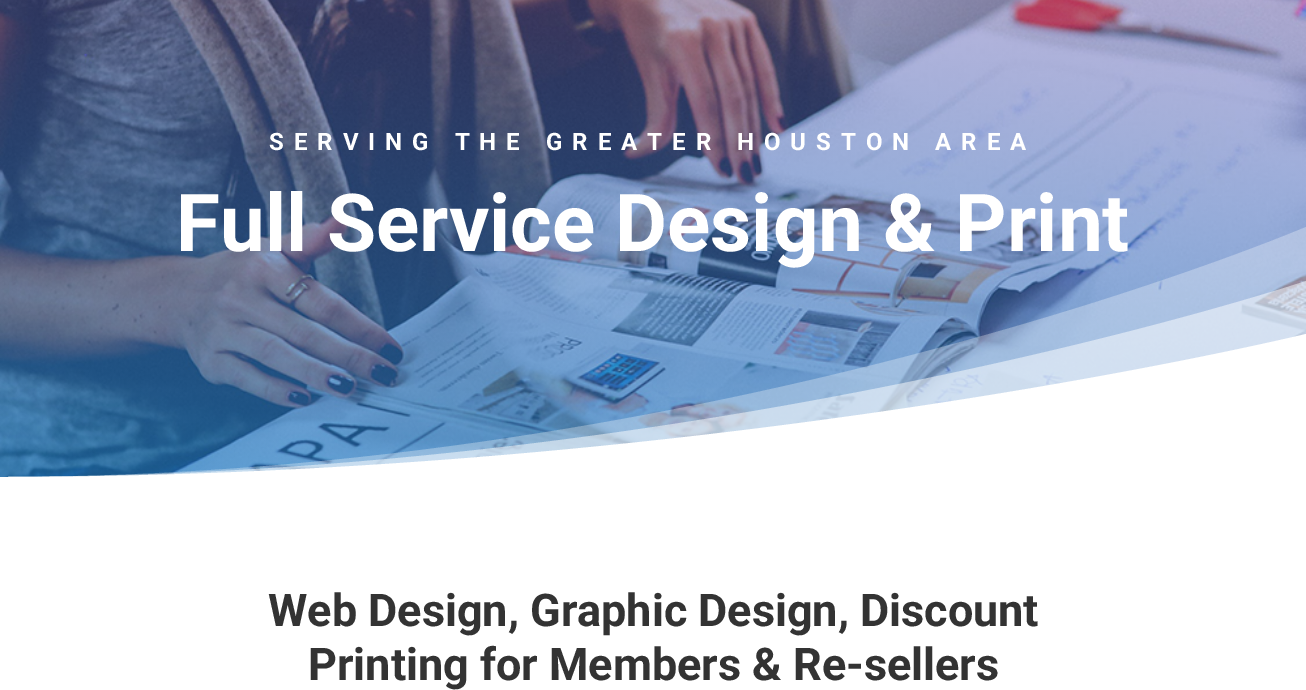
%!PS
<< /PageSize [1306 690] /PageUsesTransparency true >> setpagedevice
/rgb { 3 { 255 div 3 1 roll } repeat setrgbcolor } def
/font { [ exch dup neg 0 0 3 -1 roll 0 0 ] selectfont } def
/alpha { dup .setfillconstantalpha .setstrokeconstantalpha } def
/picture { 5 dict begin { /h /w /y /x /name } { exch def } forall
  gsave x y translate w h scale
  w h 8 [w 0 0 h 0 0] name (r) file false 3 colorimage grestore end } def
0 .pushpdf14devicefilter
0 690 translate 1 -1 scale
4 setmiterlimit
255 255 255 rgb
0 0 1306 690 rectfill
(img/1.rgb) 0 0 1306 477 picture
0.3 alpha
1306 477 moveto 0 477 lineto 721 477 1306 227 1306 227 curveto closepath fill
0.5 alpha
1306 477 moveto 0 477 lineto 721 477 1306 281 1306 281 curveto closepath fill
1 alpha
1306 477 moveto 0 477 lineto 721 477 1306 334 1306 334 curveto closepath fill
/Roboto-Bold 24 font
269 150 moveto 10 0 (SERVING THE GREATER HOUSTON AREA) ashow
/Roboto-Bold 80 font
176 251 moveto (Full Service Design & Print) show
/Roboto-Bold 45 font
51 51 51 rgb
268 626 moveto (Web Design, Graphic Design, Discount) show
308 680 moveto (Printing for Members & Re-sellers) show
.poppdf14devicefilter showpage
